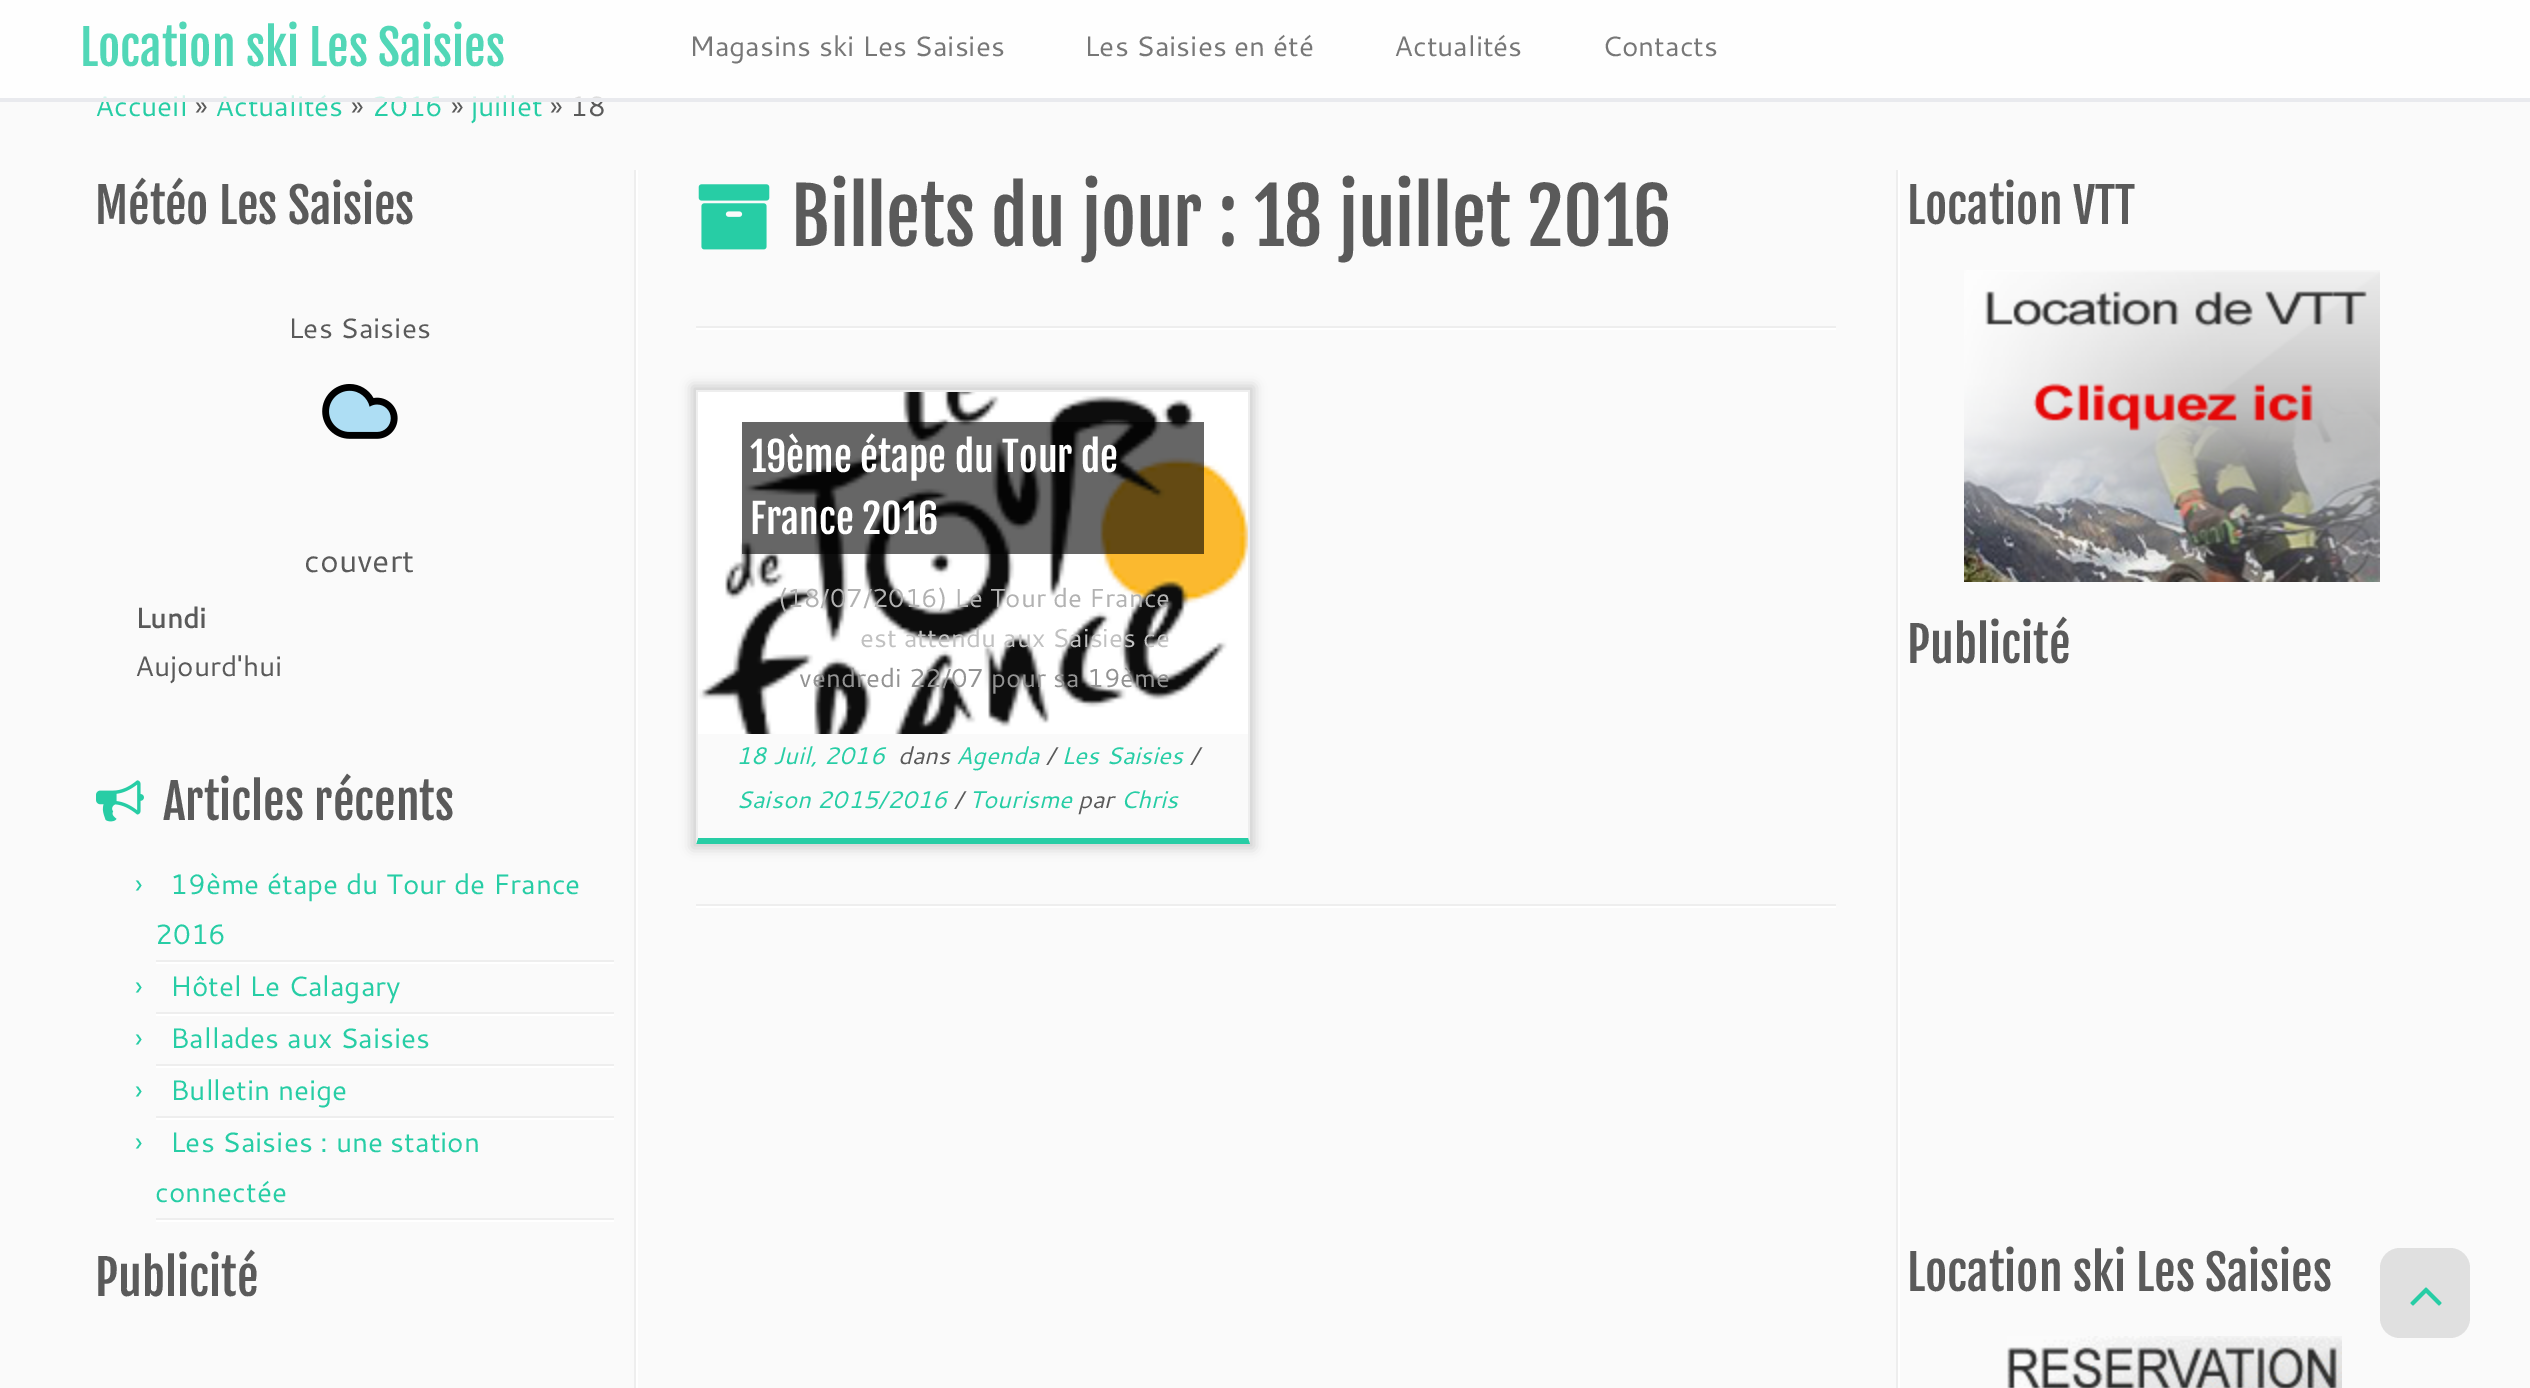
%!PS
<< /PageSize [2530 1388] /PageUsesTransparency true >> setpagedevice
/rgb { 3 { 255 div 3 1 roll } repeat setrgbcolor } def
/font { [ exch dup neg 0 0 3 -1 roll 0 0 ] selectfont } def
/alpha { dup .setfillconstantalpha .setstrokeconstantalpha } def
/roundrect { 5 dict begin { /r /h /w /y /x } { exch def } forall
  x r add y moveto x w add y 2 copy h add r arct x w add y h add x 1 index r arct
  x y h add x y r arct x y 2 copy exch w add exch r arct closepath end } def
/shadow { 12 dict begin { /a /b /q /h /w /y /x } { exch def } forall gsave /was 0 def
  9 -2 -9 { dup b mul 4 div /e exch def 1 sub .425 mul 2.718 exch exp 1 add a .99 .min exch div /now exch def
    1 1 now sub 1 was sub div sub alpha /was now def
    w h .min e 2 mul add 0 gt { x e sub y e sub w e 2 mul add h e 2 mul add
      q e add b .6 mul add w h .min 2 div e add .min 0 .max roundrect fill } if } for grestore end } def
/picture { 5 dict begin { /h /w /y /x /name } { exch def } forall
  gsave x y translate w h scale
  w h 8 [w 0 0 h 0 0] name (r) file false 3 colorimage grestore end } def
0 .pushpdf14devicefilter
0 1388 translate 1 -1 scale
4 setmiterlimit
250 250 250 rgb
0 0 2530 1388 rectfill
238 238 238 rgb
634 170 2 1218 rectfill
(img/1.rgb) 322 384 76 55 picture
255 255 255 rgb
636 170 2 1218 rectfill
(img/2.rgb) 96 780 48 42 picture
[
  [156 960 458 2 238 238 238]
  [156 962 458 2 255 255 255]
  [156 1012 458 2 238 238 238]
  [156 1014 458 2 255 255 255]
  [156 1064 458 2 238 238 238]
  [156 1066 458 2 255 255 255]
  [156 1116 458 2 238 238 238]
  [156 1118 458 2 255 255 255]
  [156 1218 458 2 238 238 238]
  [156 1220 458 2 255 255 255]
] { aload pop rgb rectfill } forall
(img/3.rgb) 698 184 72 66 picture
238 238 238 rgb
696 326 1140 2 rectfill
255 255 255 rgb
696 328 1140 2 rectfill
gsave
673 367 moveto 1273 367 lineto 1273 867 lineto 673 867 lineto closepath 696 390 moveto 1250 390 lineto 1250 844 lineto 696 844 lineto closepath eoclip newpath
204 204 204 rgb
692 386 562 462 0 6 1 shadow
grestore
238 238 238 rgb
696 390 554 2 rectfill
1250 390 moveto 1250 844 lineto 1248 838 lineto 1248 392 lineto closepath fill
39 205 165 rgb
1250 844 moveto 696 844 lineto 698 838 lineto 1248 838 lineto closepath fill
238 238 238 rgb
696 844 moveto 696 390 lineto 698 392 lineto 698 838 lineto closepath fill
(img/4.rgb) 698 392 550 342 picture
0.6 alpha
[
  [742 422 462 132 0 0 0]
] { aload pop rgb rectfill } forall
1 alpha
[
  [696 904 1140 2 238 238 238]
  [696 906 1140 2 255 255 255]
  [1896 170 2 1218 238 238 238]
  [1898 170 2 1218 255 255 255]
] { aload pop rgb rectfill } forall
(img/5.rgb) 1964 270 416 312 picture
(img/6.rgb) 2007 1336 335 52 picture
224 224 224 rgb
2380 1248 90 90 20 roundrect fill
(img/7.rgb) 2410 1287 32 19 picture
/Cantarell-Regular 28 font
39 205 165 rgb
95 116 moveto (Accueil) show
90 90 90 rgb
195 116 moveto (») show
39 205 165 rgb
215 116 moveto (Actualités) show
90 90 90 rgb
351 116 moveto (») show
39 205 165 rgb
372 116 moveto (2016) show
90 90 90 rgb
451 116 moveto (») show
39 205 165 rgb
471 116 moveto (juillet) show
90 90 90 rgb
550 116 moveto (» 18) show
0.8 alpha
255 255 255 rgb
0 0 2530 98 rectfill
1 alpha
119 119 119 rgb
[
  [(Contacts) 1602 56]
  [(Actualités) 1394 56]
  [(Les Saisies en été) 1084 56]
  [(Magasins ski Les Saisies) 689 56]
] { aload pop moveto show } forall
/FjallaOne-Regular 48 font
82 215 183 rgb
80 66 moveto (Location ski Les Saisies) show
233 234 238 rgb
0 98 2530 4 rectfill
90 90 90 rgb
95 224 moveto (Météo Les Saisies) show
/Cantarell-Regular 28 font
288 338 moveto (Les Saisies) show
/Cantarell-Regular 32 font
304 572 moveto (couvert) show
/Cantarell-Bold 28 font
135 628 moveto (Lundi) show
/Cantarell-Regular 28 font
135 676 moveto (Aujourd'hui) show
/FjallaOne-Regular 48 font
163 820 moveto (Articles récents) show
/Cantarell-Regular 28 font
39 205 165 rgb
[
  [(›) 135 894]
  [(19ème étape du Tour de France) 170 894]
  [(2016) 155 944]
  [(›) 135 996]
  [(Hôtel Le Calagary) 170 996]
  [(›) 135 1048]
  [(Ballades aux Saisies) 170 1048]
  [(›) 135 1100]
  [(Bulletin neige) 170 1100]
  [(›) 135 1152]
  [(Les Saisies : une station) 170 1152]
  [(connectée) 155 1202]
] { aload pop moveto show } forall
/FjallaOne-Regular 48 font
90 90 90 rgb
95 1296 moveto (Publicité) show
/FjallaOne-Regular 76 font
791 246 moveto (Billets du jour : 18 juillet 2016) show
/FjallaOne-Regular 40 font
255 255 255 rgb
750 472 moveto (19ème étape du Tour de) show
750 534 moveto (France 2016) show
/Cantarell-Regular 26 font
178 178 178 rgb
778 607 moveto (\(18/07/2016\) Le Tour de France) show
193 193 193 rgb
860 647 moveto (est attendu aux Saisies ce) show
147 147 147 rgb
799 687 moveto (vendredi 22/07 pour sa 19ème) show
/Cantarell-Italic 24 font
39 205 165 rgb
736 764 moveto (18 Juil, 2016) show
90 90 90 rgb
898 764 moveto (dans) show
39 205 165 rgb
956 764 moveto (Agenda) show
90 90 90 rgb
1046 764 moveto (/) show
39 205 165 rgb
1061 764 moveto (Les Saisies) show
90 90 90 rgb
1190 764 moveto (/) show
39 205 165 rgb
736 808 moveto (Saison 2015/2016) show
90 90 90 rgb
954 808 moveto (/) show
39 205 165 rgb
969 808 moveto (Tourisme) show
90 90 90 rgb
1078 808 moveto (par) show
39 205 165 rgb
1120 808 moveto (Chris) show
/FjallaOne-Regular 48 font
90 90 90 rgb
[
  [(Location VTT) 1907 224]
  [(Publicité) 1907 663]
  [(Location ski Les Saisies) 1907 1291]
] { aload pop moveto show } forall
.poppdf14devicefilter showpage
